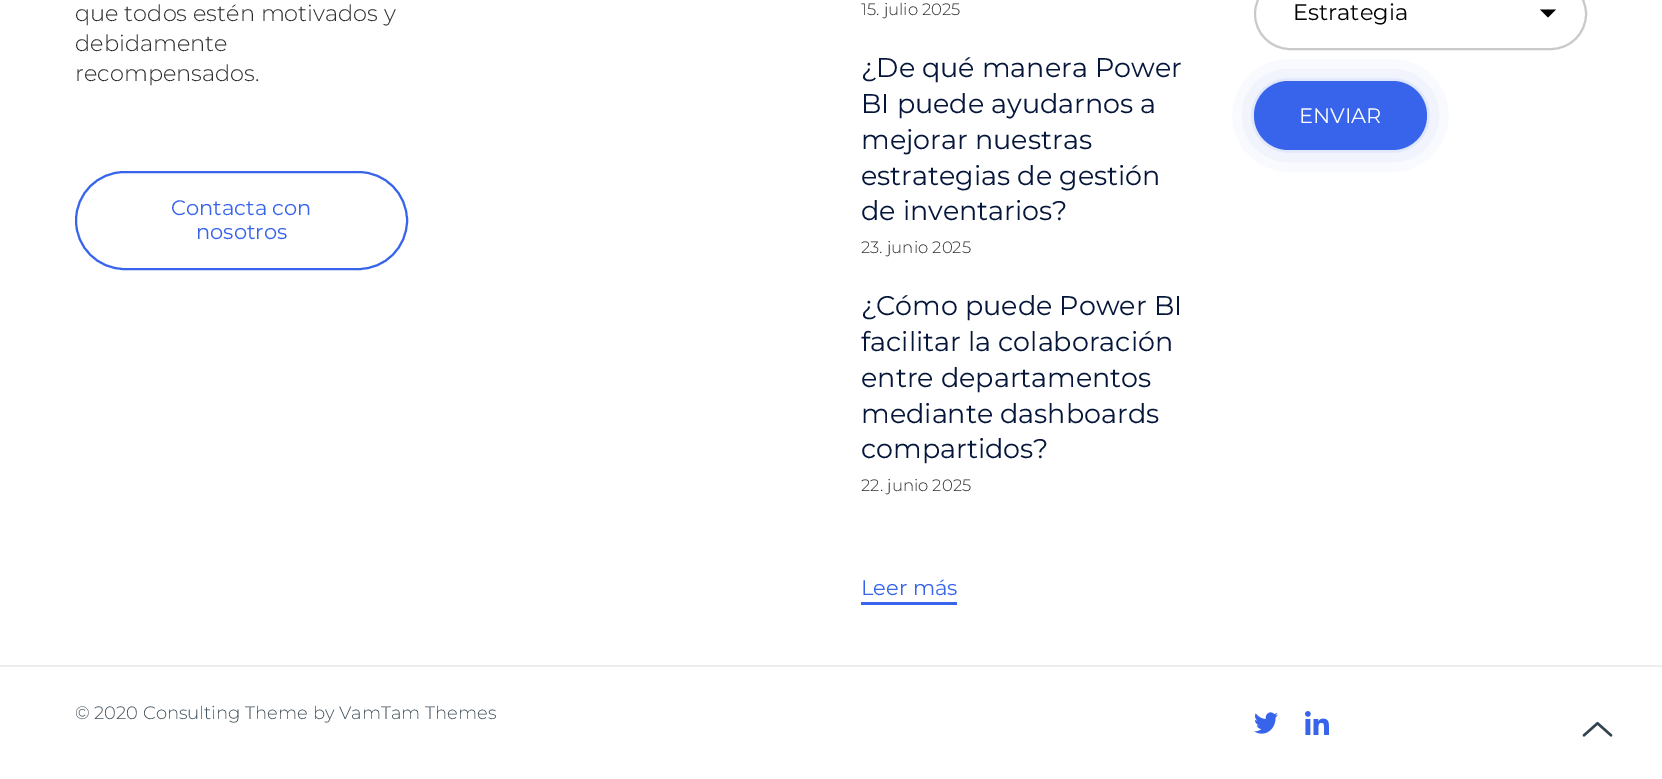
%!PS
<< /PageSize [1662 779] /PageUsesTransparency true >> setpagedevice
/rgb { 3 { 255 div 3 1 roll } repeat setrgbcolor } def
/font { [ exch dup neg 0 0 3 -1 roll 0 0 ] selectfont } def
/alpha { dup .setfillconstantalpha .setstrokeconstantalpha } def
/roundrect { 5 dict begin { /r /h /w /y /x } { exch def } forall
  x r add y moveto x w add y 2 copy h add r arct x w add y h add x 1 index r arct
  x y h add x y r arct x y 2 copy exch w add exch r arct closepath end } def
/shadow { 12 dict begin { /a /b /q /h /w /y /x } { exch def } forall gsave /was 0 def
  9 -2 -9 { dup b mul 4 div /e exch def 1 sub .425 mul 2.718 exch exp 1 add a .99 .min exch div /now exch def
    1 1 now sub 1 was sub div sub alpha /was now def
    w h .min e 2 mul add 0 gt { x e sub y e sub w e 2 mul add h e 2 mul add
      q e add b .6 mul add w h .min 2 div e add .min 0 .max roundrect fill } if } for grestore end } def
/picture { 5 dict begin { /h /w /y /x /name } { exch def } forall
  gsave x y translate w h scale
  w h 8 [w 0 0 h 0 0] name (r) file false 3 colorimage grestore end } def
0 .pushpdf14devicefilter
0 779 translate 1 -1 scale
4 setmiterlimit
255 255 255 rgb
0 0 1662 779 rectfill
237 237 237 rgb
0 665 1662 2 rectfill
55 100 235 rgb
2 setlinewidth
76 172 331 97 48.5 roundrect stroke
861 602 96 3 rectfill
0 0 0 rgb
1540 9.5 moveto 1548 17.5 lineto 1556 9.5 lineto closepath fill
201 201 201 rgb
1255 -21 331 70 35 roundrect stroke
55 100 235 rgb
1275 102 131 27 13.5 19 1 shadow
1254 81 173 69 34.5 roundrect fill
(img/1.rgb) 1254 712 24 22 picture
(img/2.rgb) 1305 711 24 24 picture
(img/3.rgb) 1582 721 31 16 picture
/Montserrat-Light 22.5 font
44 44 44 rgb
[
  [(que todos estén motivados y) 75 21]
  [(debidamente) 75 51]
  [(recompensados.) 75 81]
] { aload pop moveto show } forall
/Montserrat-Regular 21 font
55 100 235 rgb
171 215 moveto (Contacta con) show
196 239 moveto (nosotros) show
/Montserrat-Light 16.5 font
44 44 44 rgb
861 15 moveto (15. julio 2025) show
/Montserrat-Regular 27 font
6 22 58 rgb
[
  [(¿De qué manera Power) 861 77]
  [(BI puede ayudarnos a) 861 113]
  [(mejorar nuestras) 861 149]
  [(estrategias de gestión) 861 185]
  [(de inventarios?) 861 220]
] { aload pop moveto show } forall
/Montserrat-Light 16.5 font
44 44 44 rgb
861 253 moveto (23. junio 2025) show
/Montserrat-Regular 27 font
6 22 58 rgb
[
  [(¿Cómo puede Power BI) 861 315]
  [(facilitar la colaboración) 861 351]
  [(entre departamentos) 861 387]
  [(mediante dashboards) 861 423]
  [(compartidos?) 861 458]
] { aload pop moveto show } forall
/Montserrat-Light 16.5 font
44 44 44 rgb
861 491 moveto (22. junio 2025) show
/Montserrat-Regular 21 font
55 100 235 rgb
861 595 moveto (Leer más) show
/Montserrat-Regular 22.5 font
0 0 0 rgb
1293 20 moveto (Estrategia) show
/Montserrat-Regular 21 font
255 255 255 rgb
1299 123 moveto (ENVIAR) show
/Montserrat-Light 18 font
69 84 94 rgb
75 719 moveto (© 2020 Consulting Theme by VamTam Themes) show
.poppdf14devicefilter showpage
